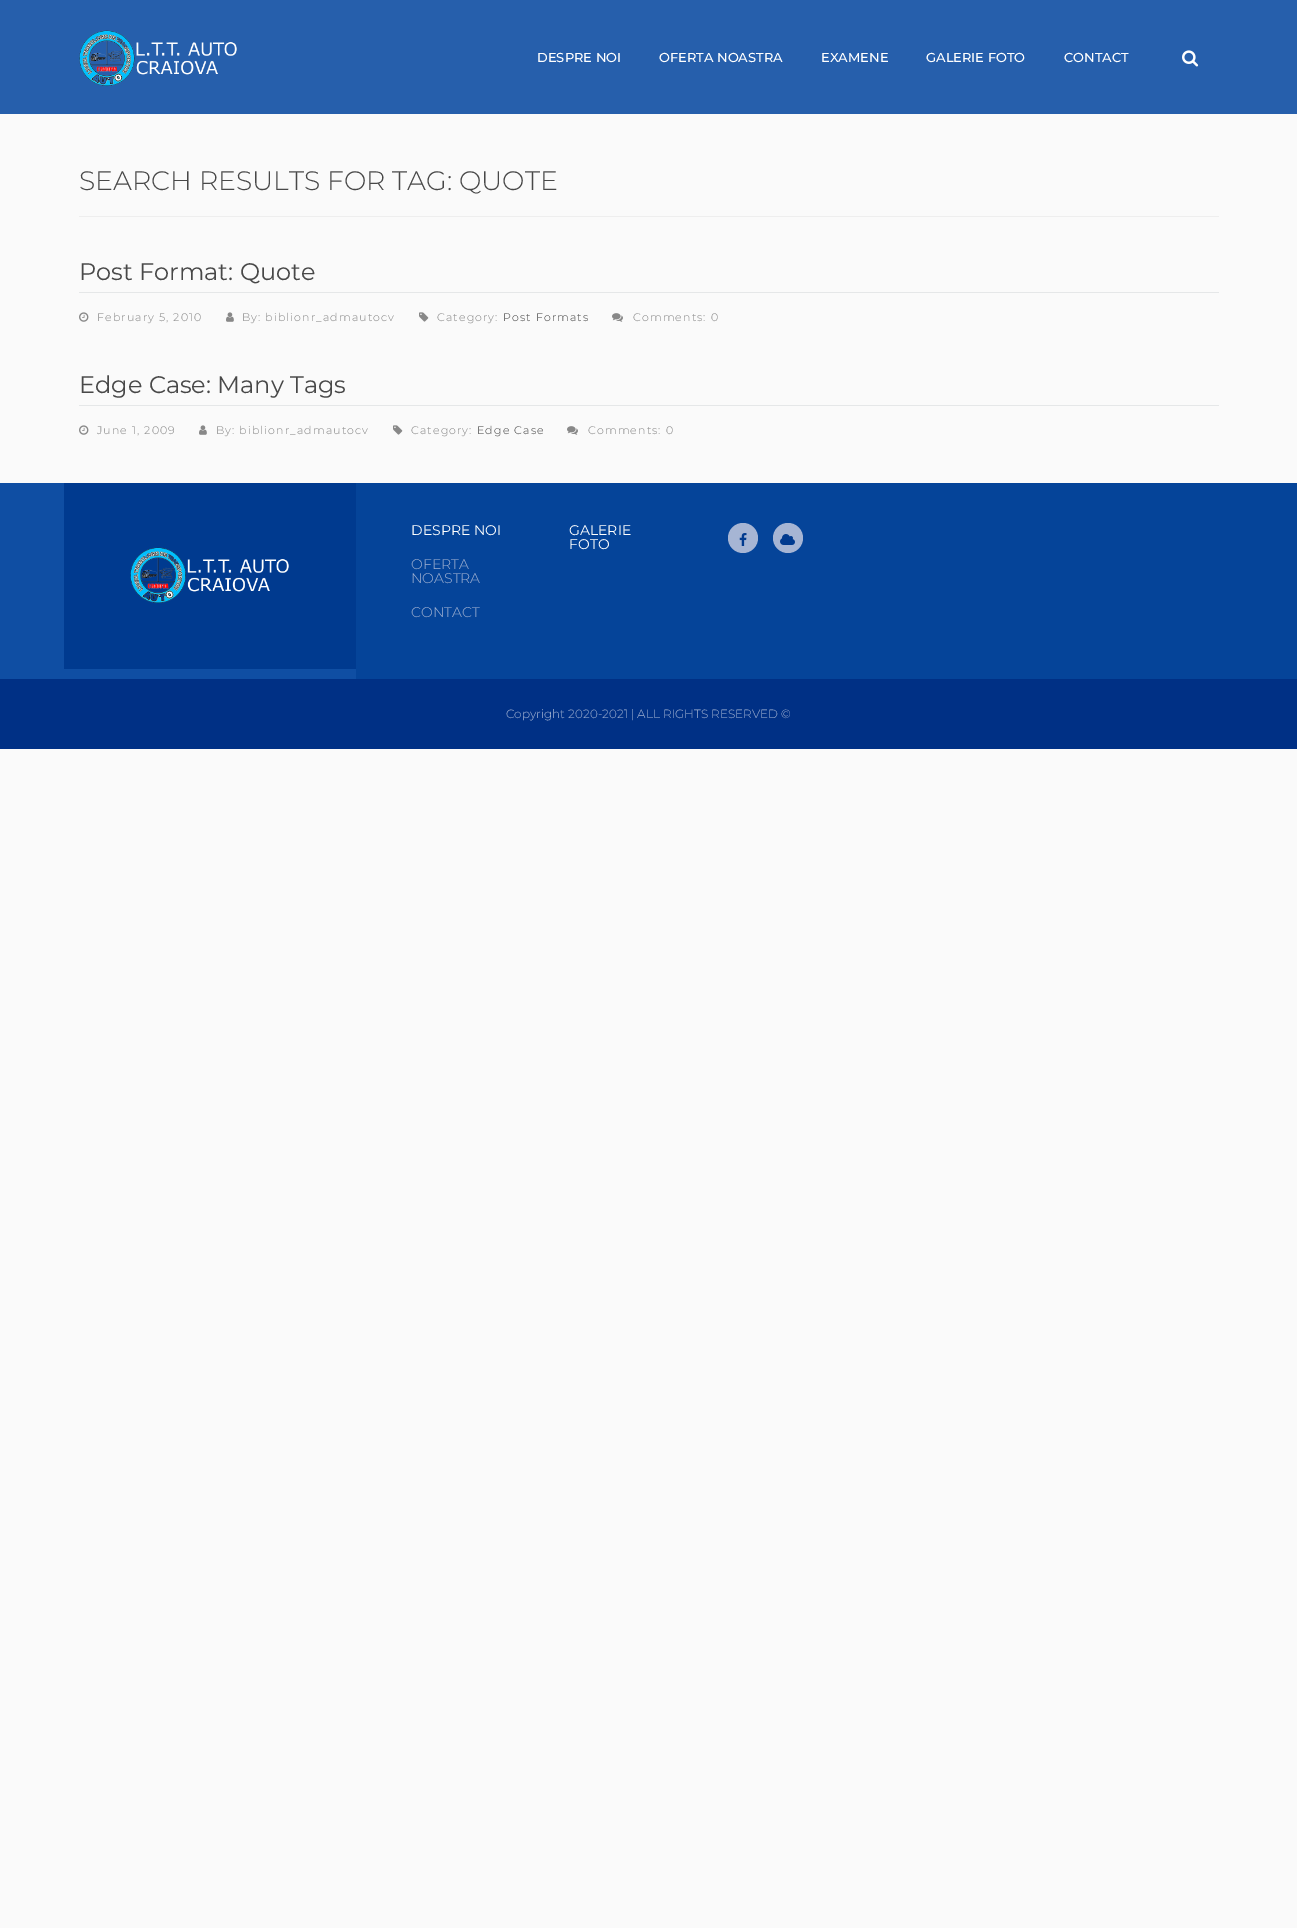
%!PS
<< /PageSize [1297 1928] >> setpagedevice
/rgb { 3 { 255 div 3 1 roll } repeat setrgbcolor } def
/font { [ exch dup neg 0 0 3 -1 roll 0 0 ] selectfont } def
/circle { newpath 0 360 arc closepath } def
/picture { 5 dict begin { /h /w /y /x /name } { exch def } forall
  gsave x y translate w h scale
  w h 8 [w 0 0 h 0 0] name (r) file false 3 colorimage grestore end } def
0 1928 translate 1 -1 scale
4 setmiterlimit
250 250 250 rgb
0 0 1297 1928 rectfill
38 95 172 rgb
0 0 1297 114 rectfill
(img/1.rgb) 79 30 158 57 picture
(img/2.rgb) 1182 50 17 17 picture
238 238 238 rgb
79 216 1140 1 rectfill
229 231 232 rgb
79 292 1140 1 rectfill
(img/3.rgb) 79 312 10 10 picture
(img/4.rgb) 226 312 8 10 picture
(img/5.rgb) 419 312 10 10 picture
(img/6.rgb) 612 313 11 9 picture
79 405 1140 1 rectfill
(img/3.rgb) 79 425 10 10 picture
(img/4.rgb) 199 425 8 10 picture
(img/5.rgb) 393 425 10 10 picture
(img/6.rgb) 567 426 11 9 picture
[
  [0 483 356 196 15 78 163]
  [356 483 941 196 5 68 153]
  [64 483 292 186 0 58 143]
] { aload pop rgb rectfill } forall
(img/7.rgb) 130 547 159 57 picture
166 181 212 rgb
743 538 15 circle fill
(img/8.rgb) 739 533 8 13 picture
788 538 15 circle fill
(img/9.rgb) 780 534 15 11 picture
0 48 133 rgb
0 679 1297 70 rectfill
/Montserrat-Medium 13 font
255 255 255 rgb
[
  [(DESPRE NOI) 537 62]
  [(OFERTA NOASTRA) 659 62]
  [(EXAMENE) 821 62]
  [(GALERIE FOTO) 926 62]
  [(CONTACT) 1064 62]
] { aload pop moveto show } forall
/Montserrat-Light 26.7 font
72 72 72 rgb
79 190 moveto (SEARCH RESULTS FOR TAG: QUOTE) show
/Montserrat-Regular 24 font
79 280 moveto (Post Format: Quote) show
/Montserrat-Light 11 font
136 136 136 rgb
97 321 moveto 1.1 0 (February 5, 2010) ashow
242 321 moveto 1.1 0 (By: biblionr_admautocv) ashow
437 321 moveto 1.1 0 (Category:) ashow
72 72 72 rgb
503 321 moveto 1.1 0 (Post Formats) ashow
136 136 136 rgb
633 321 moveto 1.1 0 (Comments: 0) ashow
/Montserrat-Regular 24 font
72 72 72 rgb
79 393 moveto (Edge Case: Many Tags) show
/Montserrat-Light 11 font
136 136 136 rgb
97 434 moveto 1.1 0 (June 1, 2009) ashow
216 434 moveto 1.1 0 (By: biblionr_admautocv) ashow
411 434 moveto 1.1 0 (Category:) ashow
72 72 72 rgb
477 434 moveto 1.1 0 (Edge Case) ashow
136 136 136 rgb
588 434 moveto 1.1 0 (Comments: 0) ashow
/Montserrat-Regular 14 font
255 255 255 rgb
411 535 moveto (DESPRE NOI) show
/Montserrat-Light 14 font
166 181 212 rgb
[
  [(OFERTA) 411 569]
  [(NOASTRA) 411 583]
  [(CONTACT) 411 617]
] { aload pop moveto show } forall
/Montserrat-Regular 14 font
255 255 255 rgb
569 535 moveto (GALERIE) show
569 549 moveto (FOTO) show
/Montserrat-Light 12 font
166 181 212 rgb
506 718 moveto (Copyright 2020-2021 | ALL RIGHTS RESERVED ©) show
showpage
